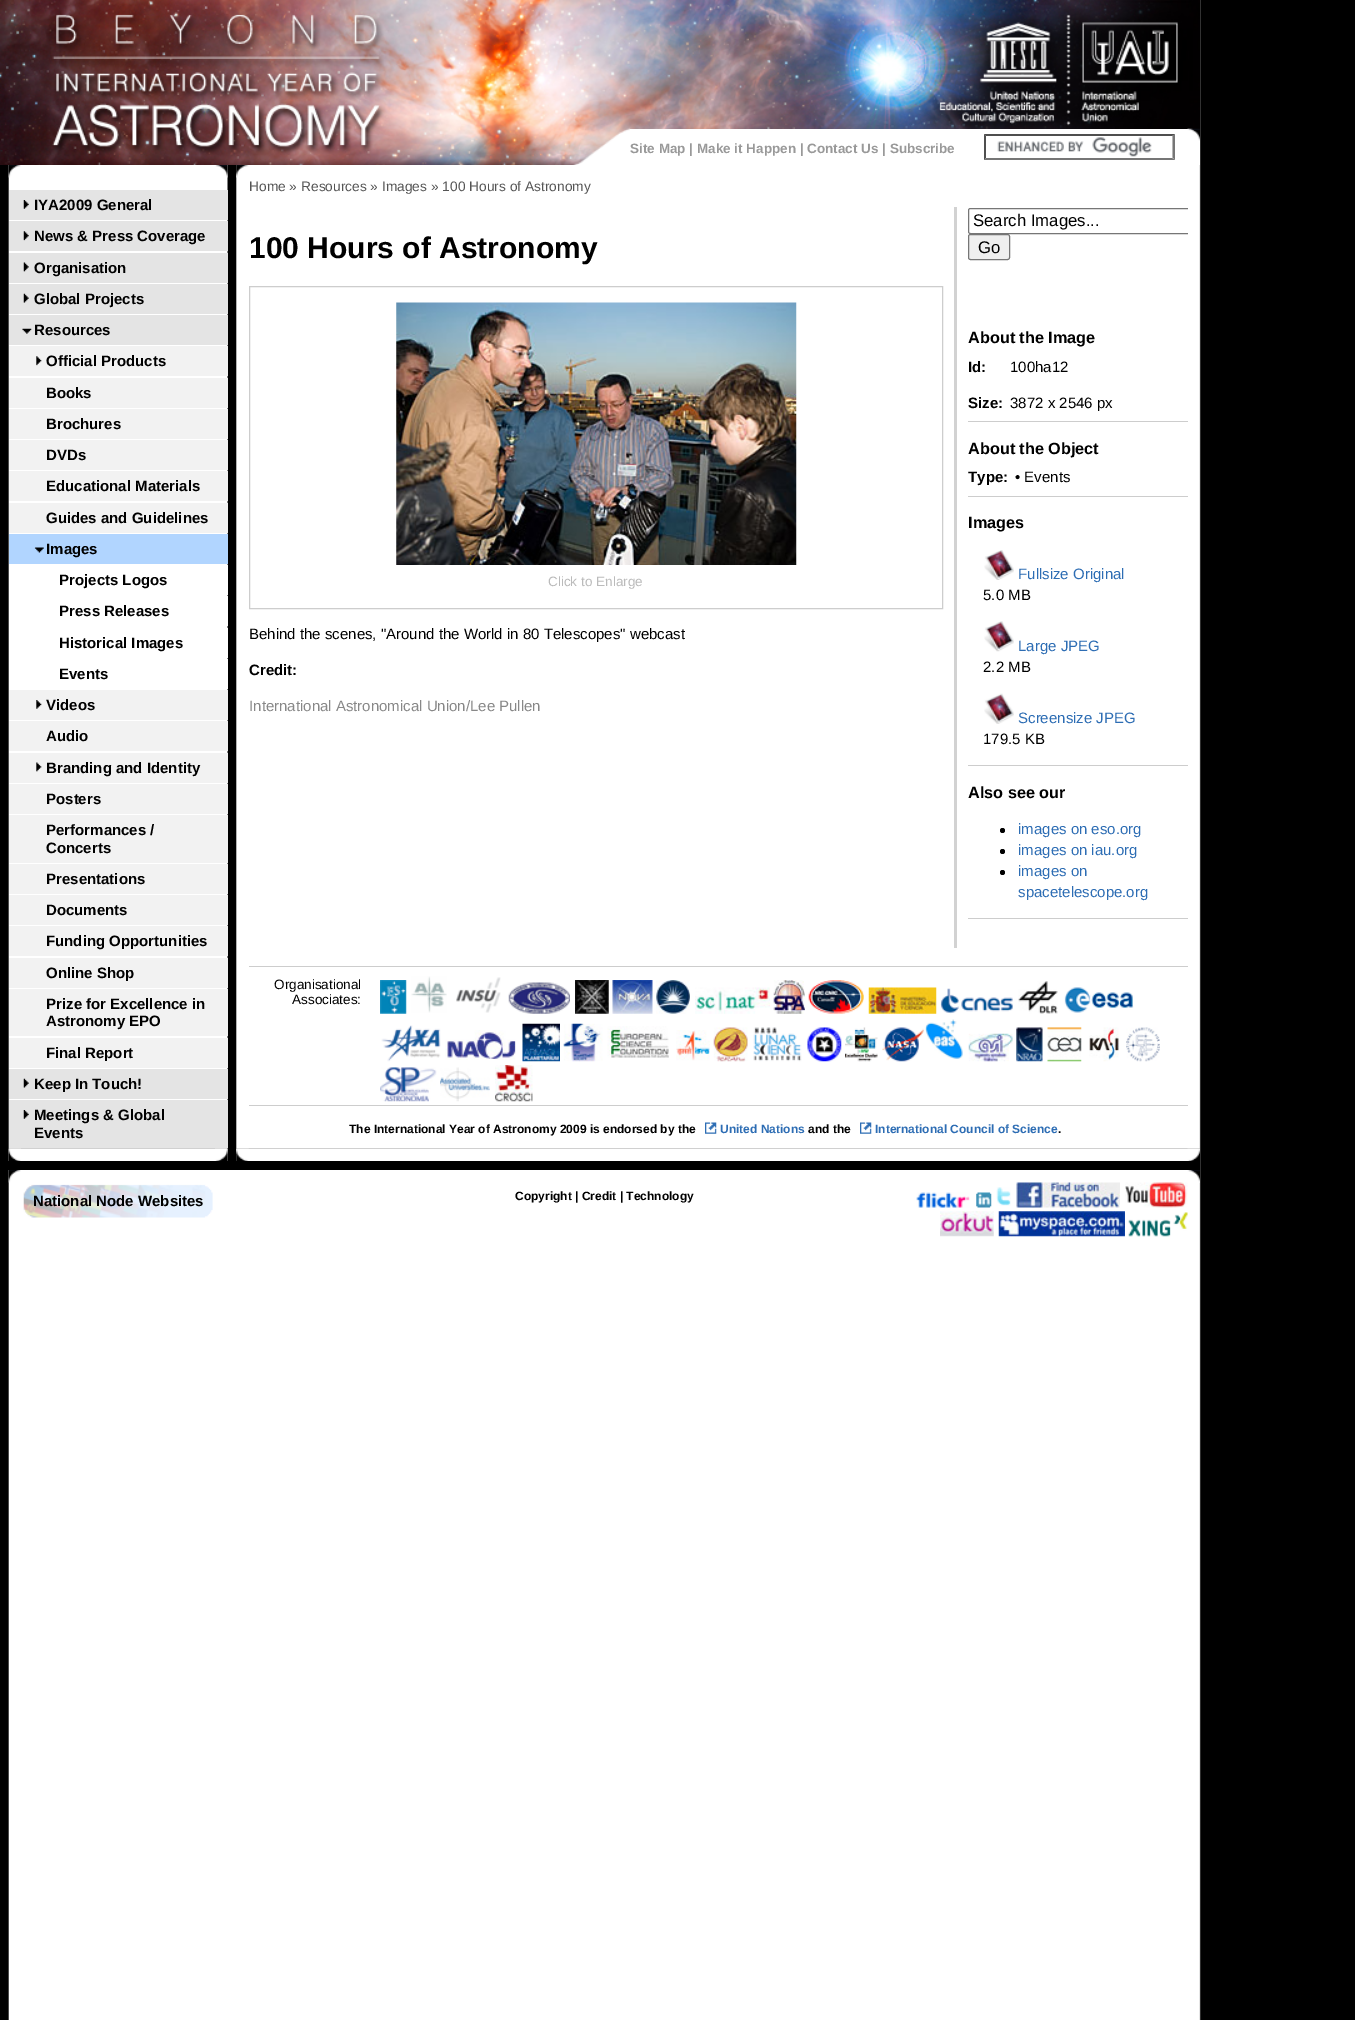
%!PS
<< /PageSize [1355 2020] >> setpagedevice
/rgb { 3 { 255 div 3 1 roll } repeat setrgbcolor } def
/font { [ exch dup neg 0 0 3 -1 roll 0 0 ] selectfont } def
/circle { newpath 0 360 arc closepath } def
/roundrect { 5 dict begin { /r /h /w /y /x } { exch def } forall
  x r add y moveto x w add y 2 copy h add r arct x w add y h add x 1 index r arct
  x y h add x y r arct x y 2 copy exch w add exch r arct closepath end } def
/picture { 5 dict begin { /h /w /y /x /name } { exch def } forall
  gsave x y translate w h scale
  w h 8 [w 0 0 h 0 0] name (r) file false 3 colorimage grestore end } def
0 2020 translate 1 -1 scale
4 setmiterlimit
0 0 0 rgb
0 0 1355 2020 rectfill
(img/1.rgb) 1200 0 1 2020 picture
(img/2.rgb) 8 0 1193 2020 picture
8 165 1192 984 rectfill
(img/3.rgb) 8 165 1192 984 picture
(img/4.rgb) 0 0 1200 165 picture
(img/5.rgb) 573 128 57 37 picture
255 255 255 rgb
630 129 570 36 rectfill
(img/6.rgb) 1187 128 13 13 picture
(img/7.rgb) 997 137 155 20 picture
79 79 79 rgb
984 134 moveto 1175 134 lineto 1172 136 lineto 986 136 lineto closepath fill
118 118 118 rgb
1175 134 moveto 1175 160 lineto 1172.5 157.5 lineto 1172.5 136 lineto closepath fill
1175 160 moveto 984 160 lineto 986 158 lineto 1172 158 lineto closepath fill
79 79 79 rgb
984 160 moveto 984 134 lineto 986 136 lineto 986 157.5 lineto closepath fill
(img/8.rgb) 8 165 13 13 picture
(img/9.rgb) 215 165 13 13 picture
228 228 228 rgb
9 190 219 30 rectfill
(img/10.rgb) 23 200 6 9 picture
9 221 219 30 rectfill
(img/11.rgb) 23 231 6 10 picture
9 253 219 30 rectfill
(img/12.rgb) 23 262 6 10 picture
9 284 219 30 rectfill
(img/13.rgb) 23 293 6 10 picture
9 315 219 30 rectfill
(img/14.rgb) 22 328 10 6 picture
242 242 242 rgb
9 346 219 30 rectfill
(img/15.rgb) 36 356 6 10 picture
[
  [9 378 219 30 242 242 242]
  [9 409 219 30 242 242 242]
  [9 440 219 30 242 242 242]
  [9 471 219 30 242 242 242]
  [9 503 219 30 242 242 242]
  [9 534 219 30 177 213 255]
] { aload pop rgb rectfill } forall
(img/16.rgb) 34 547 10 6 picture
[
  [227 565 1 30 255 255 255]
  [227 596 1 30 255 255 255]
  [227 628 1 30 255 255 255]
  [227 659 1 30 255 255 255]
  [9 690 219 30 242 242 242]
] { aload pop rgb rectfill } forall
(img/17.rgb) 36 700 6 9 picture
9 721 219 30 rectfill
9 753 219 30 rectfill
(img/18.rgb) 36 762 6 10 picture
[
  [9 784 219 30 242 242 242]
  [9 815 219 48 242 242 242]
  [9 864 219 30 242 242 242]
  [9 895 219 30 242 242 242]
  [9 926 219 30 242 242 242]
  [9 958 219 30 242 242 242]
  [9 989 219 47 242 242 242]
  [9 1038 219 30 242 242 242]
  [9 1069 219 30 228 228 228]
] { aload pop rgb rectfill } forall
(img/19.rgb) 23 1078 6 10 picture
9 1100 219 48 rectfill
(img/10.rgb) 23 1110 6 9 picture
(img/20.rgb) 236 165 13 13 picture
210 210 210 rgb
954 207 3 741 rectfill
205 205 205 rgb
249.5 286.5 693 322 rectstroke
(img/21.rgb) 396 302 401 263 picture
gsave
968 208 220 727 rectclip
118 118 118 rgb
968.5 208.5 230 25 2 roundrect stroke
grestore
239 239 239 rgb
968.5 234.5 41 25 2 roundrect gsave fill grestore
118 118 118 rgb
stroke
205 205 205 rgb
968 421 220 1 rectfill
968 496 220 1 rectfill
(img/22.rgb) 984 550 30 30 picture
(img/23.rgb) 984 621 30 31 picture
(img/24.rgb) 984 693 30 31 picture
968 765 220 1 rectfill
0 0 0 rgb
1002.5 830.5 2.5 circle fill
1002.5 851.5 2.5 circle fill
1002.5 872.5 2.5 circle fill
205 205 205 rgb
968 918 220 1 rectfill
249 966 939 1 rectfill
(img/25.rgb) 380 980 27 34 picture
(img/26.rgb) 411 976 36 37 picture
(img/27.rgb) 456 977 45 36 picture
(img/28.rgb) 508 982 62 32 picture
(img/29.rgb) 575 980 34 34 picture
(img/30.rgb) 612 980 41 34 picture
(img/31.rgb) 656 980 34 34 picture
(img/32.rgb) 695 987 75 27 picture
(img/33.rgb) 773 980 32 34 picture
(img/34.rgb) 808 980 56 34 picture
(img/35.rgb) 868 987 69 27 picture
(img/36.rgb) 940 988 73 26 picture
(img/37.rgb) 1018 981 40 33 picture
(img/38.rgb) 1064 987 70 26 picture
(img/39.rgb) 381 1025 60 37 picture
(img/40.rgb) 445 1030 71 30 picture
(img/41.rgb) 522 1023 38 39 picture
(img/42.rgb) 563 1023 40 39 picture
(img/43.rgb) 607 1026 62 32 picture
(img/44.rgb) 676 1030 34 31 picture
(img/45.rgb) 713 1027 35 35 picture
(img/46.rgb) 753 1027 49 35 picture
(img/47.rgb) 807 1027 35 35 picture
(img/48.rgb) 845 1027 33 35 picture
(img/49.rgb) 882 1027 42 35 picture
(img/50.rgb) 923 1019 40 40 picture
(img/51.rgb) 968 1033 45 29 picture
(img/52.rgb) 1016 1027 27 35 picture
(img/53.rgb) 1047 1027 35 35 picture
(img/54.rgb) 1089 1027 30 35 picture
(img/55.rgb) 1126 1027 34 35 picture
(img/56.rgb) 380 1067 57 35 picture
(img/57.rgb) 440 1067 50 35 picture
(img/58.rgb) 495 1065 38 37 picture
249 1105 939 1 rectfill
(img/59.rgb) 705 1122 12 12 picture
(img/60.rgb) 860 1122 12 12 picture
0 0 0 rgb
8 1149 229 12 rectfill
(img/61.rgb) 8 1148 1192 13 picture
(img/62.rgb) 8 1148 13 13 picture
(img/63.rgb) 215 1148 13 13 picture
(img/64.rgb) 236 1148 13 13 picture
(img/65.rgb) 1187 1148 13 13 picture
8 1161 1192 9 rectfill
(img/66.rgb) 8 1170 13 13 picture
(img/67.rgb) 1187 1170 13 13 picture
244 244 244 rgb
1199 1182 1 1 rectfill
(img/68.rgb) 23 1184 190 34 picture
(img/69.rgb) 916 1192 54 16 picture
(img/70.rgb) 976 1192 16 16 picture
(img/71.rgb) 996 1187 15 19 picture
(img/72.rgb) 1016 1182 104 26 picture
(img/73.rgb) 1125 1182 63 26 picture
(img/74.rgb) 940 1211 54 26 picture
(img/75.rgb) 998 1211 127 26 picture
(img/76.rgb) 1128 1212 60 25 picture
/LiberationSans-Bold 13.5 font
153 153 153 rgb
630 153 moveto (Site Map | Make it Happen | Contact Us | Subscribe) show
/LiberationSans-Bold 15 font
0 0 0 rgb
[
  [(IYA2009 General) 34 210]
  [(News & Press Coverage) 34 241]
  [(Organisation) 34 273]
  [(Global Projects) 34 304]
  [(Resources) 34 335]
  [(Official Products) 46 366]
  [(Books) 46 398]
  [(Brochures) 46 429]
  [(DVDs) 46 460]
  [(Educational Materials) 46 491]
  [(Guides and Guidelines) 46 523]
  [(Images) 46 554]
  [(Projects Logos) 59 585]
  [(Press Releases) 59 616]
  [(Historical Images) 59 648]
  [(Events) 59 679]
  [(Videos) 46 710]
  [(Audio) 46 741]
  [(Branding and Identity) 46 773]
  [(Posters) 46 804]
  [(Performances /) 46 835]
  [(Concerts) 46 853]
  [(Presentations) 46 884]
  [(Documents) 46 915]
  [(Funding Opportunities) 46 946]
  [(Online Shop) 46 978]
  [(Prize for Excellence in) 46 1009]
  [(Astronomy EPO) 46 1026]
  [(Final Report) 46 1058]
  [(Keep In Touch!) 34 1089]
  [(Meetings & Global) 34 1120]
  [(Events) 34 1138]
] { aload pop moveto show } forall
/LiberationSans-Regular 13.75 font
85 85 85 rgb
249 191 moveto (Home » Resources » Images » 100 Hours of Astronomy) show
/LiberationSans-Bold 30 font
0 0 0 rgb
249 258 moveto (100 Hours of Astronomy) show
/LiberationSans-Regular 13.5 font
187 187 187 rgb
548 586 moveto (Click to Enlarge) show
/LiberationSans-Regular 15 font
0 0 0 rgb
249 639 moveto (Behind the scenes, "Around the World in 80 Telescopes" webcast) show
/LiberationSans-Bold 15 font
249 675 moveto (Credit:) show
/LiberationSans-Regular 15 font
136 136 136 rgb
249 711 moveto (International Astronomical Union/Lee Pullen) show
/LiberationSans-Regular 16.75 font
0 0 0 rgb
973 226 moveto (Search Images...) show
978 253 moveto (Go) show
/LiberationSans-Bold 16.25 font
968 343 moveto (About the Image) show
/LiberationSans-Bold 15 font
968 372 moveto (Id:) show
/LiberationSans-Regular 15 font
1010 372 moveto (100ha12) show
/LiberationSans-Bold 15 font
968 408 moveto (Size:) show
/LiberationSans-Regular 15 font
1010 408 moveto (3872 x 2546 px) show
/LiberationSans-Bold 16.25 font
968 454 moveto (About the Object) show
gsave
968 208 220 727 rectclip
/LiberationSans-Bold 15 font
968 482 moveto (Type:) show
grestore
/LiberationSans-Regular 15 font
1015 482 moveto (• Events) show
/LiberationSans-Bold 16.25 font
968 528 moveto (Images) show
/LiberationSans-Regular 15 font
45 109 180 rgb
1018 579 moveto (Fullsize Original) show
0 0 0 rgb
983 600 moveto (5.0 MB) show
45 109 180 rgb
1018 651 moveto (Large JPEG) show
0 0 0 rgb
983 672 moveto (2.2 MB) show
45 109 180 rgb
1018 723 moveto (Screensize JPEG) show
0 0 0 rgb
983 744 moveto (179.5 KB) show
/LiberationSans-Bold 16.25 font
968 798 moveto (Also see our) show
/LiberationSans-Regular 15 font
45 109 180 rgb
[
  [(images on eso.org) 1018 834]
  [(images on iau.org) 1018 855]
  [(images on) 1018 876]
  [(spacetelescope.org) 1018 897]
] { aload pop moveto show } forall
/LiberationSans-Regular 13.5 font
0 0 0 rgb
274 989 moveto (Organisational) show
292 1004 moveto (Associates:) show
/LiberationSans-Bold 12 font
349 1133 moveto (The International Year of Astronomy 2009 is endorsed by the) show
45 109 180 rgb
720 1133 moveto (United Nations) show
0 0 0 rgb
808 1133 moveto (and the) show
45 109 180 rgb
875 1133 moveto (International Council of Science) show
0 0 0 rgb
1058 1133 moveto (.) show
/LiberationSans-Bold 15 font
33 1206 moveto (National Node Websites) show
/LiberationSans-Bold 12 font
515 1200 moveto (Copyright | Credit | Technology) show
showpage
